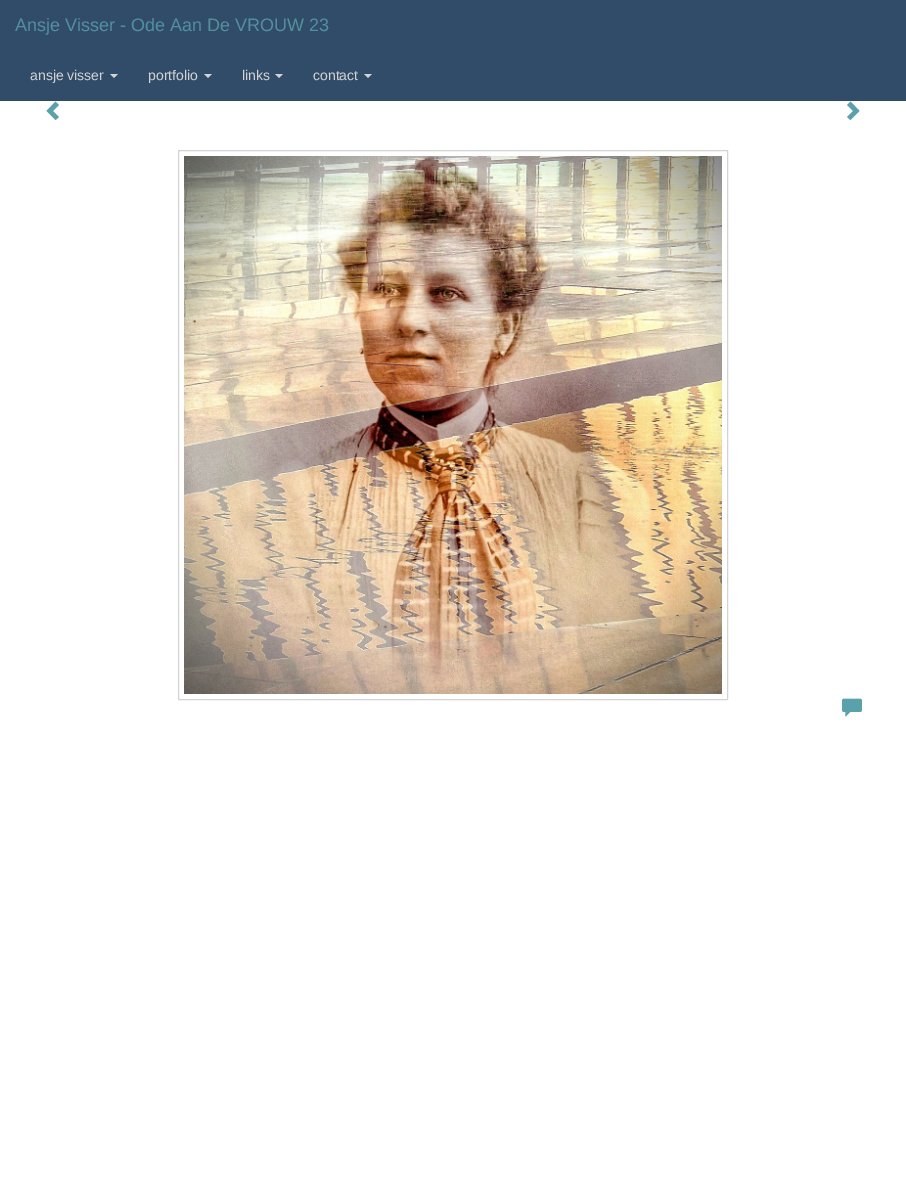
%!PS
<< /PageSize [906 1196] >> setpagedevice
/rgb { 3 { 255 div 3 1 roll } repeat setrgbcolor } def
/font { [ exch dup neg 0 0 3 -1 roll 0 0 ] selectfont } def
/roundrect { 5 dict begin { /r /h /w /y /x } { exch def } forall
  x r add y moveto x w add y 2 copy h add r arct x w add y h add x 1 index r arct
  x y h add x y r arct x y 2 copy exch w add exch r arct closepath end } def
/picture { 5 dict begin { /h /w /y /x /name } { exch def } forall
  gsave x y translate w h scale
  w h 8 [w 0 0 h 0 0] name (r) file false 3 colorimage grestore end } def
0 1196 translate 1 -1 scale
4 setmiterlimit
255 255 255 rgb
0 0 906 1196 rectfill
49 76 104 rgb
0 0 906 101 rectfill
211 211 211 rgb
110 74 moveto 118 74 lineto 114 78 lineto closepath fill
204 74 moveto 212 74 lineto 208 78 lineto closepath fill
275 74 moveto 283 74 lineto 279 78 lineto closepath fill
364 74 moveto 372 74 lineto 368 78 lineto closepath fill
91 161 172 rgb
59 105 moveto 53 111 lineto 59 117 lineto 55.5 120 lineto 46.5 111 lineto 55.5 101.5 lineto closepath fill
859.5 111 moveto 850.5 120 lineto 847 117 lineto 853 111 lineto 847 105 lineto 850.5 101.5 lineto closepath fill
211 211 211 rgb
178.5 150.5 549 549 0.5 roundrect stroke
(img/1.rgb) 184 156 538 538 picture
(img/2.rgb) 842 698 20 19 picture
/LiberationSans-Regular 18 font
83 144 158 rgb
15 31 moveto (Ansje Visser - Ode Aan De VROUW 23) show
/LiberationSans-Regular 14 font
211 211 211 rgb
[
  [(ansje visser) 30 80]
  [(portfolio) 148 80]
  [(links) 242 80]
  [(contact) 313 80]
] { aload pop moveto show } forall
showpage
